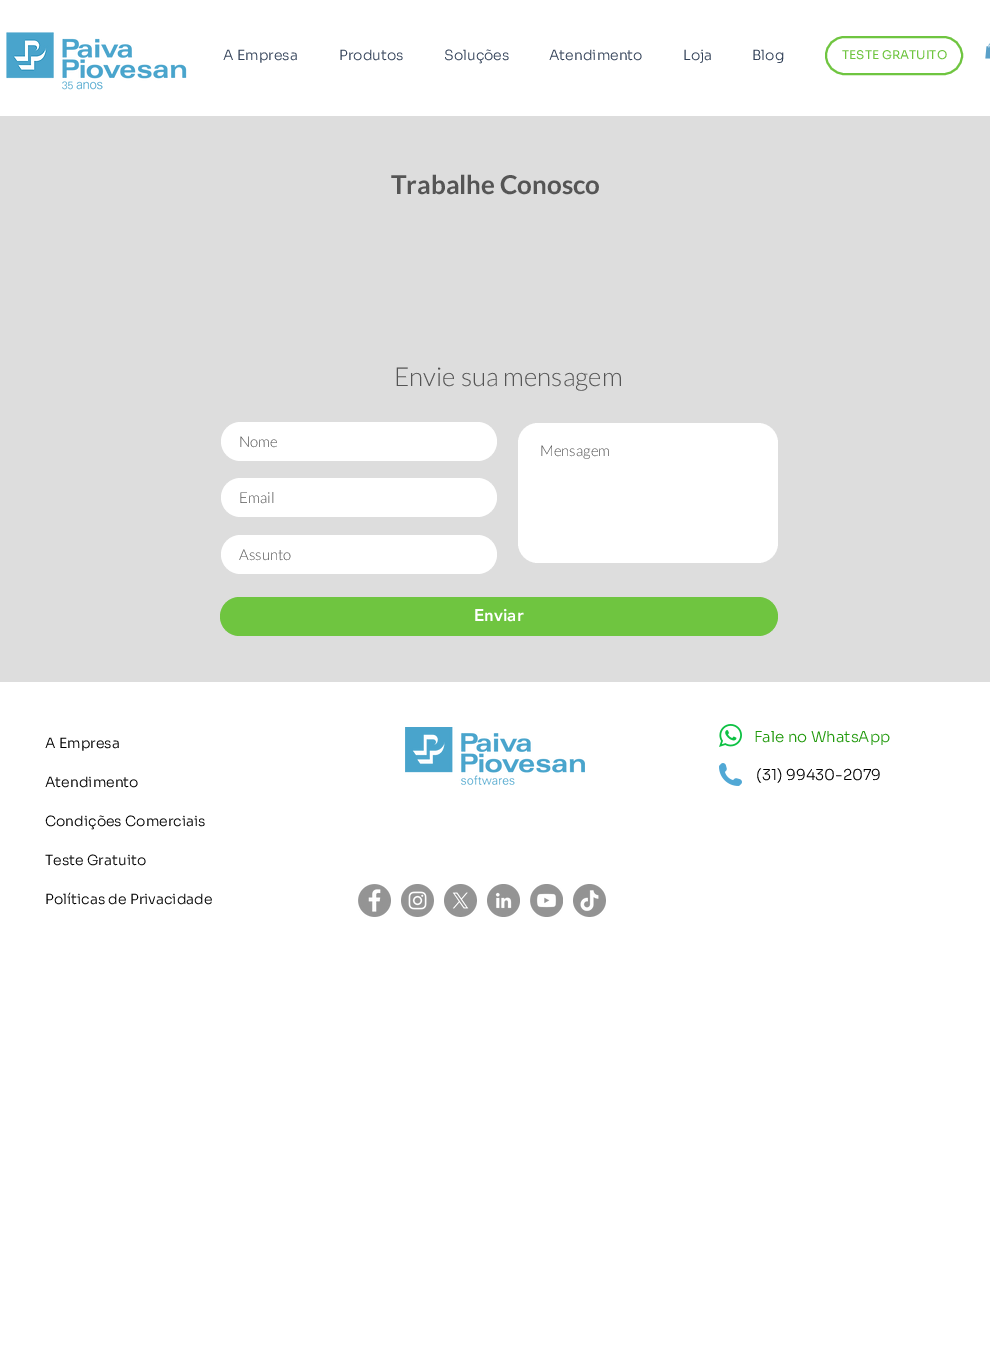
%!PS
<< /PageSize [990 1370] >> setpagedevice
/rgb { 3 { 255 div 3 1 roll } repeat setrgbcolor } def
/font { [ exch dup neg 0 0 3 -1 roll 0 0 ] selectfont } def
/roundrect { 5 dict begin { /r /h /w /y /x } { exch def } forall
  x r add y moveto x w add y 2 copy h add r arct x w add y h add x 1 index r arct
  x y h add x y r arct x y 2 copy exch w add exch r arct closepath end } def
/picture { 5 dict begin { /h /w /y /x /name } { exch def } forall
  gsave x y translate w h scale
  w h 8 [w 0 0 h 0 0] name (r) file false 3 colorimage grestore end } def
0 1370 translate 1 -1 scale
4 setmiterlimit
255 255 255 rgb
0 0 990 1370 rectfill
(img/1.rgb) 6 32 181 58 picture
111 197 64 rgb
2 setlinewidth
826 37 136 37 18.5 roundrect stroke
(img/2.rgb) 985 43 5 16 picture
221 221 221 rgb
0 116 990 566 rectfill
255 255 255 rgb
221 422 276 39 19.5 roundrect fill
518 423 260 140 20 roundrect fill
221 478 276 39 19.5 roundrect fill
221 535 276 39 19.5 roundrect fill
111 197 64 rgb
220 597 558 39 19.5 roundrect fill
(img/3.rgb) 405 727 180 58 picture
(img/4.rgb) 719 724 23 23 picture
(img/5.rgb) 719 763 23 23 picture
(img/6.rgb) 358 884 33 33 picture
(img/7.rgb) 401 884 33 33 picture
(img/8.rgb) 444 884 33 33 picture
(img/9.rgb) 487 884 33 33 picture
(img/10.rgb) 530 884 33 33 picture
(img/11.rgb) 573 884 33 33 picture
/Sora-Light 14 font
50 65 88 rgb
[
  [(A Empresa) 223 60]
  [(Produtos) 339 60]
  [(Soluções) 444 60]
  [(Atendimento) 549 60]
  [(Loja) 683 60]
  [(Blog) 752 60]
] { aload pop moveto show } forall
/Sora-Regular 12 font
111 197 64 rgb
842 59 moveto (TESTE GRATUITO) show
/Lato-Bold 26 font
85 85 85 rgb
391 194 moveto (Trabalhe Conosco) show
/Lato-Light 26 font
394 386 moveto (Envie sua mensagem) show
/Lato-Light 15 font
[
  [(Nome) 239 447]
  [(Mensagem) 540 456]
  [(Email) 239 503]
  [(Assunto) 239 560]
] { aload pop moveto show } forall
/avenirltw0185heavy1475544-Black 17 font
255 255 255 rgb
474 621 moveto (Enviar) show
/Sora-Light 14 font
0 0 0 rgb
[
  [(A Empresa) 45 748]
  [(Atendimento) 45 787]
  [(Condições Comerciais) 45 826]
  [(Teste Gratuito) 45 865]
  [(Políticas de Privacidade) 45 904]
] { aload pop moveto show } forall
/Sora-Light 15 font
32 153 11 rgb
754 742 moveto (Fale no WhatsApp) show
0 0 0 rgb
756 780 moveto (\(31\) 99430-2079) show
showpage
